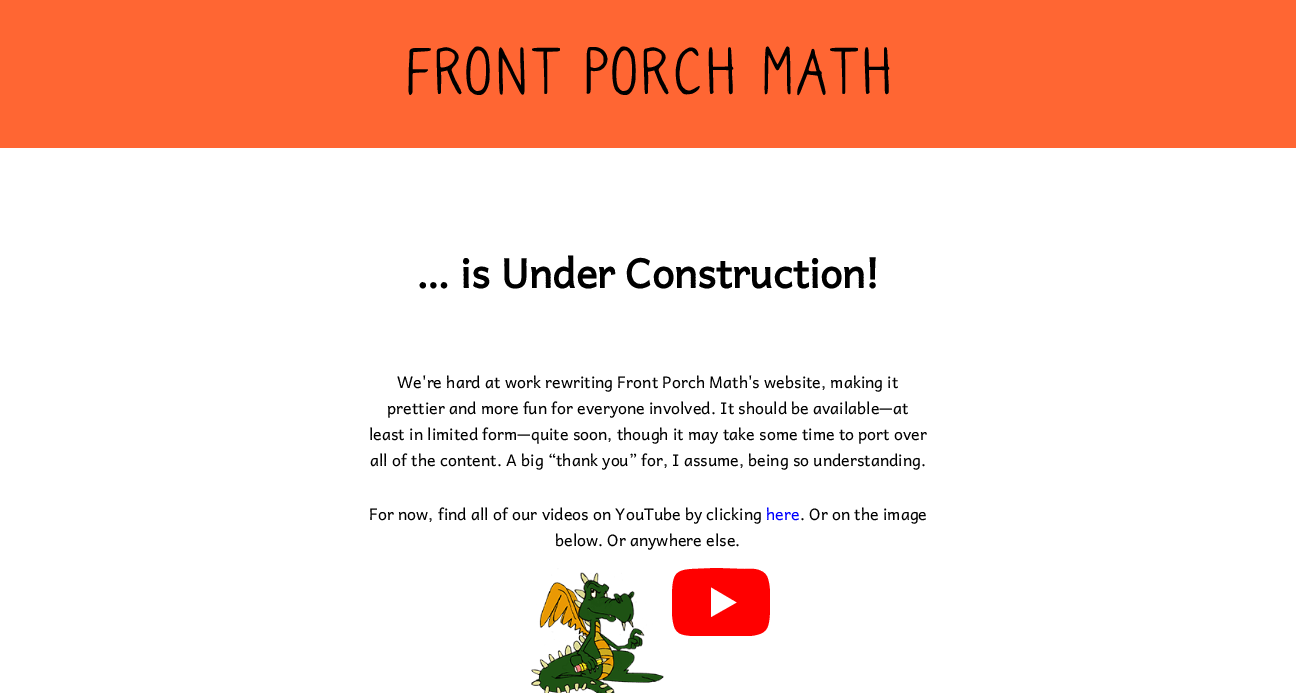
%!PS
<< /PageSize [1296 693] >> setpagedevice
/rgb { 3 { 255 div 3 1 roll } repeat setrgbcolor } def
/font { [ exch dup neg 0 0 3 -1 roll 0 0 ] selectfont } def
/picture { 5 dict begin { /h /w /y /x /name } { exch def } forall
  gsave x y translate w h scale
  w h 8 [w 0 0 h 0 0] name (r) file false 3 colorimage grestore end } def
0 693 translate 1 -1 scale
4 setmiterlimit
255 255 255 rgb
0 0 1296 693 rectfill
255 102 51 rgb
0 0 1296 148 rectfill
(img/1.rgb) 531 568 133 125 picture
gsave
672 568 98 68 rectclip
255 0 0 rgb
768 579 moveto 767 575 764 572 761 571 curveto 756 568 749 569 744 569 curveto 716 568 lineto 692 569 lineto 674 570 673 576 672 593 curveto 672 604 671 616 674 626 curveto 675 630 678 633 681 634 curveto 686 636 693 636 698 636 curveto 722 637 lineto 750 636 lineto 768 634 769 628 770 611 curveto 770 601 771 589 768 579 curveto closepath fill
grestore
255 255 255 rgb
711 617 moveto 736.5 602.5 lineto 711 587.5 lineto closepath fill
/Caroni-Regular 70 font
0 0 0 rgb
403 98 moveto (FRONT PORCH MATH) show
/Andika-Bold 40 font
416 288 moveto (… is Under Construction!) show
/Andika-Regular 16 font
[
  [(We're hard at work rewriting Front Porch Math's website, making it) 397 388]
  [(prettier and more fun for everyone involved. It should be available—at) 387 414]
  [(least in limited form—quite soon, though it may take some time to port over) 369 440]
  [(all of the content. A big “thank you” for, I assume, being so understanding.) 370 466]
  [(For now, find all of our videos on YouTube by clicking) 369 520]
] { aload pop moveto show } forall
0 0 255 rgb
766 520 moveto (here) show
0 0 0 rgb
800 520 moveto (. Or on the image) show
555 546 moveto (below. Or anywhere else.) show
showpage
